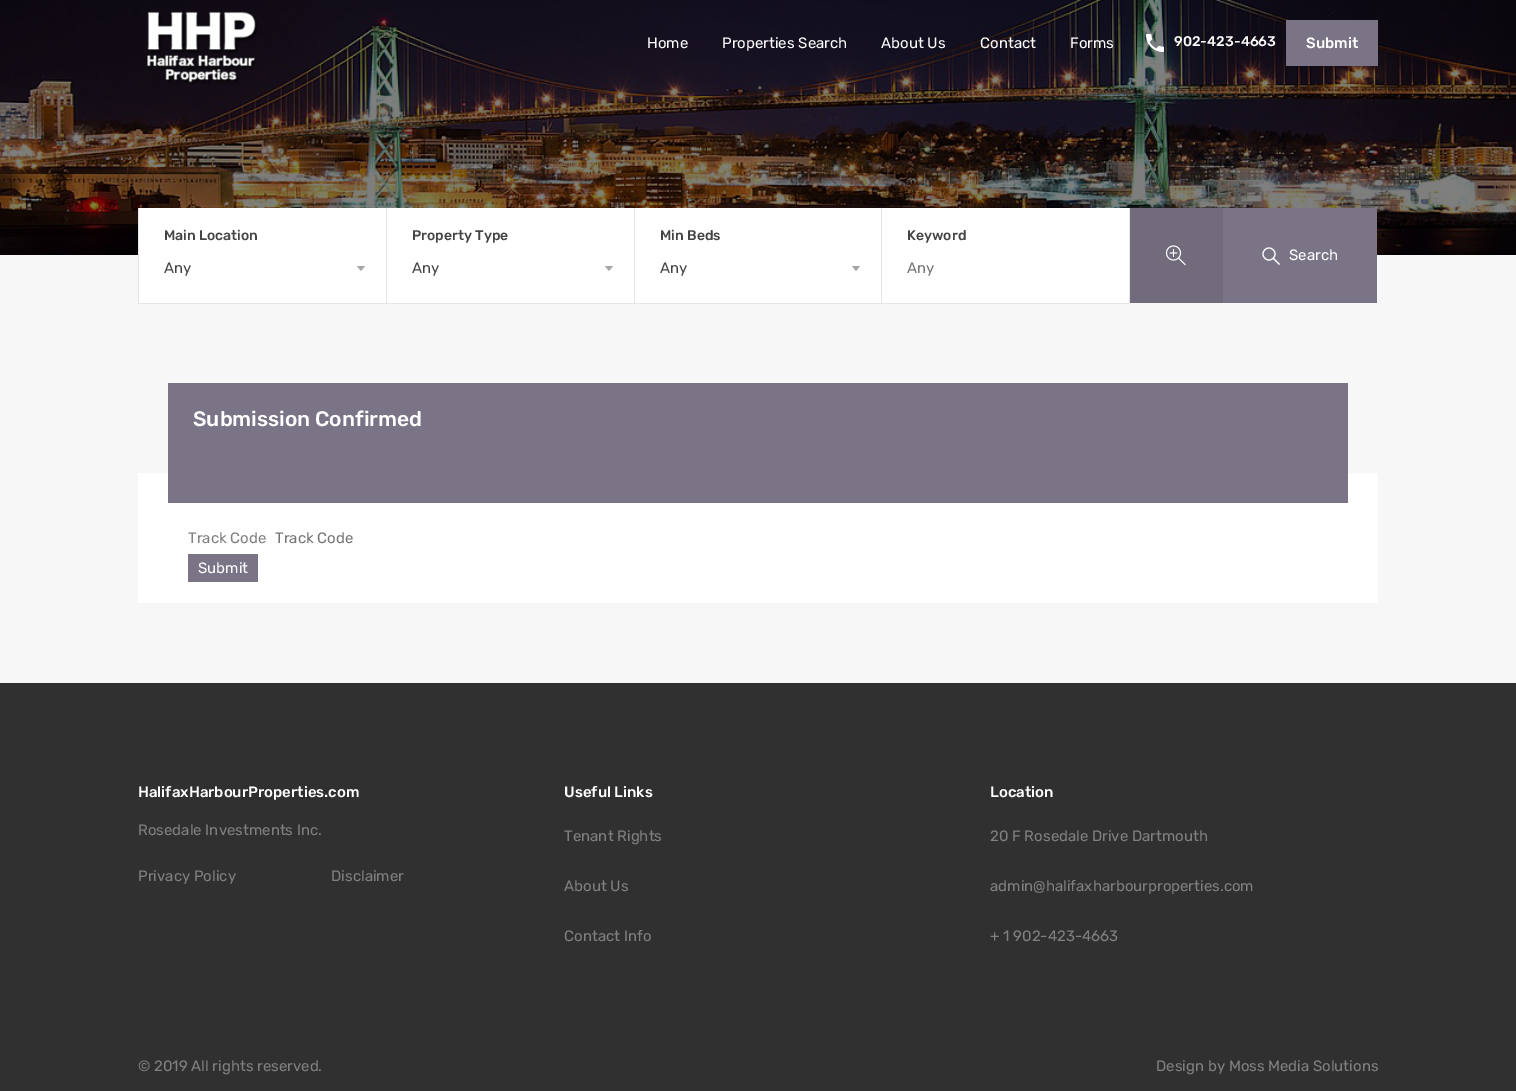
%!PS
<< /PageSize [1516 1091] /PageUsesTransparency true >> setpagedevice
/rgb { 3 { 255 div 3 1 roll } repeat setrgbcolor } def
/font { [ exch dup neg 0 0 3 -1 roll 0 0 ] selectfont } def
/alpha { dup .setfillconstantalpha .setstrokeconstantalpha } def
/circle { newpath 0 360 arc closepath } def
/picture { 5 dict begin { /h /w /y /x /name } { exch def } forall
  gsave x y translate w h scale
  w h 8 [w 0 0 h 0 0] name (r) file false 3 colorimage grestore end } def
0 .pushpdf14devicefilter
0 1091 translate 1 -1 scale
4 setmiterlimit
247 247 247 rgb
0 0 1516 1091 rectfill
(img/1.rgb) 0 0 1516 255 picture
(img/2.rgb) 146 11 112 74 picture
(img/3.rgb) 1146 34 18 18 picture
[
  [1286 20 92 46 123 116 135]
  [139 208 991 96 255 255 255]
  [138 208 1 96 230 230 230]
] { aload pop rgb rectfill } forall
387 208 moveto 387 304 lineto 386 303 lineto 386 208 lineto closepath fill
0.2 alpha
128 128 128 rgb
387 304 moveto 139 304 lineto 139 303 lineto 386 303 lineto closepath fill
1 alpha
166 166 166 rgb
357 266 moveto 365 266 lineto 361 271 lineto closepath fill
230 230 230 rgb
635 208 moveto 635 304 lineto 634 303 lineto 634 208 lineto closepath fill
0.2 alpha
128 128 128 rgb
635 304 moveto 387 304 lineto 387 303 lineto 634 303 lineto closepath fill
1 alpha
166 166 166 rgb
605 266 moveto 613 266 lineto 609 271 lineto closepath fill
230 230 230 rgb
882 208 moveto 882 304 lineto 881 303 lineto 881 208 lineto closepath fill
0.2 alpha
128 128 128 rgb
882 304 moveto 635 304 lineto 635 303 lineto 881 303 lineto closepath fill
1 alpha
166 166 166 rgb
852 266 moveto 860 266 lineto 856 271 lineto closepath fill
230 230 230 rgb
1130 208 moveto 1130 304 lineto 1129 303 lineto 1129 208 lineto closepath fill
0.2 alpha
128 128 128 rgb
1130 304 moveto 882 304 lineto 882 303 lineto 1129 303 lineto closepath fill
1 alpha
113 107 124 rgb
1130 208 93 95 rectfill
(img/4.rgb) 1166 245 20 21 picture
123 116 135 rgb
1223 208 154 95 rectfill
255 255 255 rgb
1.1 setlinewidth
1269 254 6 circle stroke
1 setlinejoin
1273 258 moveto 1279.5 264.5 lineto stroke
[
  [138 473 1240 130 255 255 255]
  [168 383 1180 120 123 116 135]
  [188 554 70 28 123 116 135]
  [0 683 1516 408 48 48 48]
] { aload pop rgb rectfill } forall
/Rubik-Regular 15 font
255 255 255 rgb
[
  [(Home) 647 48]
  [(Properties Search) 722 48]
  [(About Us) 881 48]
  [(Contact) 980 48]
  [(Forms) 1070 48]
] { aload pop moveto show } forall
/Rubik-Medium 14 font
1174 46 moveto (902-423-4663) show
/Rubik-Medium 15 font
1306 48 moveto (Submit) show
/Rubik-Medium 14 font
68 68 68 rgb
164 240 moveto (Main Location) show
/Rubik-Regular 15 font
164 273 moveto (Any) show
/Rubik-Medium 14 font
412 240 moveto (Property Type) show
/Rubik-Regular 15 font
412 273 moveto (Any) show
/Rubik-Medium 14 font
660 240 moveto (Min Beds) show
/Rubik-Regular 15 font
660 273 moveto (Any) show
/Rubik-Medium 14 font
907 240 moveto (Keyword) show
/Rubik-Regular 15 font
117 117 117 rgb
907 273 moveto (Any) show
255 255 255 rgb
1289 260 moveto (Search) show
/Rubik-Medium 21 font
193 426 moveto (Submission Confirmed) show
/Rubik-Regular 15 font
128 128 128 rgb
188 543 moveto (Track Code) show
117 117 117 rgb
275 543 moveto (Track Code) show
255 255 255 rgb
198 573 moveto (Submit) show
/Rubik-Medium 15 font
138 797 moveto (HalifaxHarbourProperties.com) show
/Rubik-Regular 15 font
128 128 128 rgb
[
  [(Rosedale Investments Inc.) 138 835]
  [(Privacy Policy) 138 881]
  [(Disclaimer) 331 881]
] { aload pop moveto show } forall
/Rubik-Medium 15 font
255 255 255 rgb
564 797 moveto (Useful Links) show
/Rubik-Regular 15 font
128 128 128 rgb
[
  [(Tenant Rights) 564 841]
  [(About Us) 564 891]
  [(Contact Info) 564 941]
] { aload pop moveto show } forall
/Rubik-Medium 15 font
255 255 255 rgb
990 797 moveto (Location) show
/Rubik-Regular 15 font
128 128 128 rgb
[
  [(20 F Rosedale Drive Dartmouth) 990 841]
  [(admin@halifaxharbourproperties.com) 990 891]
  [(+ 1 902-423-4663) 990 941]
  [(© 2019 All rights reserved.) 138 1071]
  [(Design by Moss Media Solutions) 1156 1071]
] { aload pop moveto show } forall
.poppdf14devicefilter showpage
